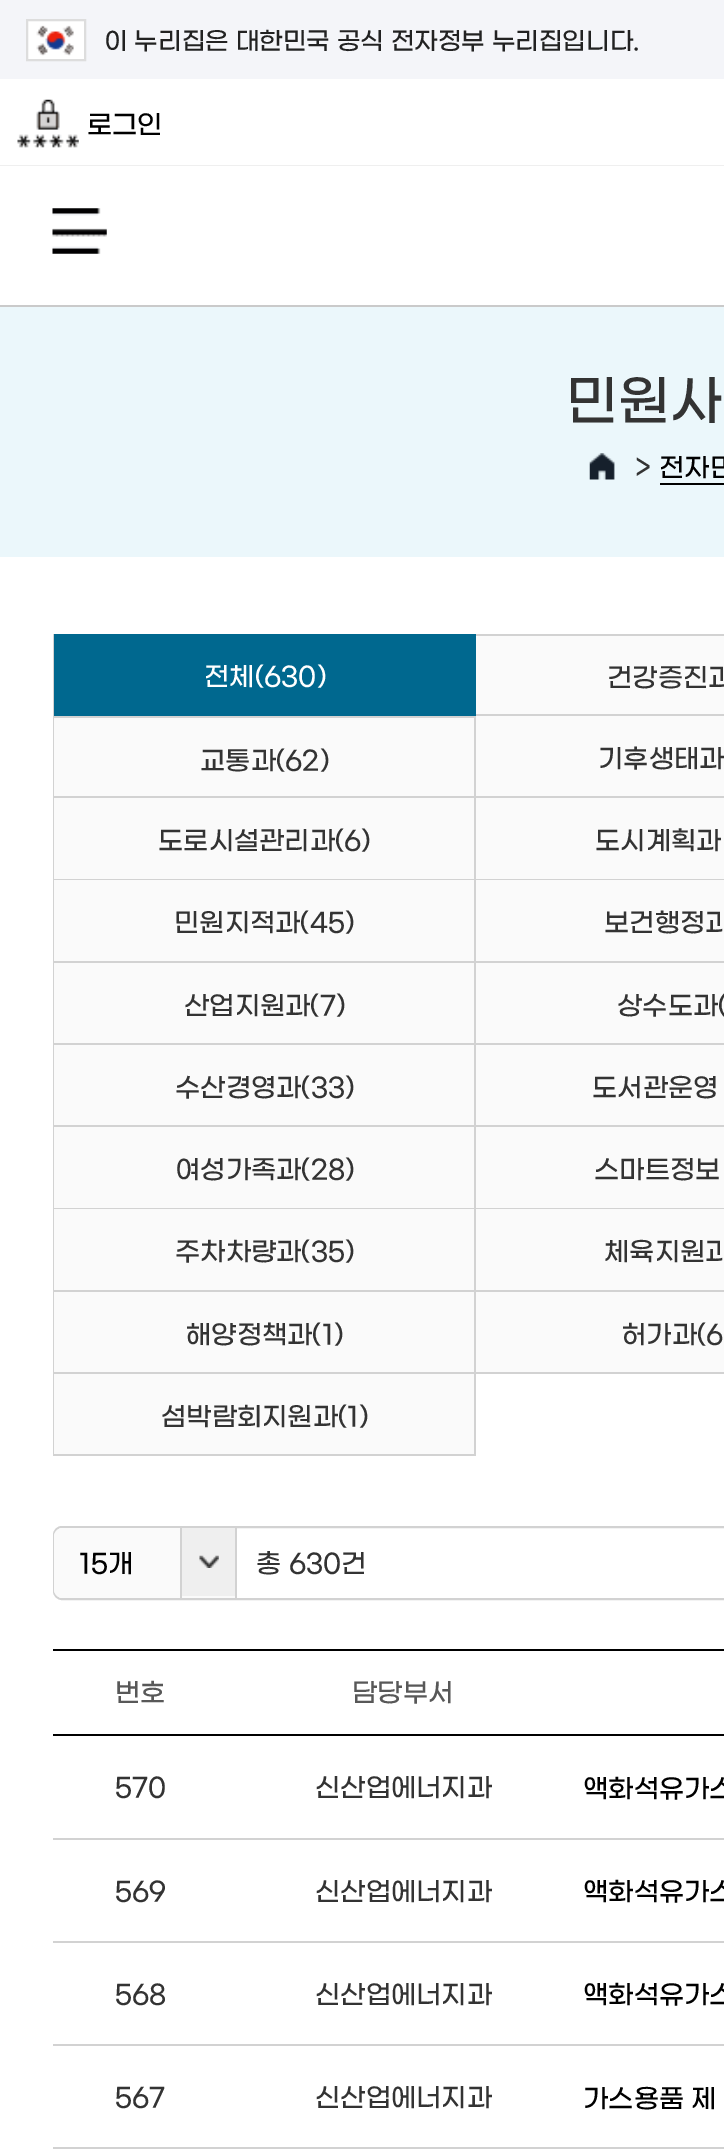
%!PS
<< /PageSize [724 2149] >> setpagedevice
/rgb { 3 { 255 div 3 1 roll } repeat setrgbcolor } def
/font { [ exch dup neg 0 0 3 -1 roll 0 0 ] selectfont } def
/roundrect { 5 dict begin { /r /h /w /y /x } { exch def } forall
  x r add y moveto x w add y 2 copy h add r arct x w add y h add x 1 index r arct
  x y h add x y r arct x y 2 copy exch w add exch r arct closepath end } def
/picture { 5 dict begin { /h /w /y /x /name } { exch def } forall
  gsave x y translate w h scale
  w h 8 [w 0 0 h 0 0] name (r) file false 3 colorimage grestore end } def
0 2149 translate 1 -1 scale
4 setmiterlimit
255 255 255 rgb
0 0 724 2149 rectfill
244 245 249 rgb
0 0 724 79 rectfill
255 255 255 rgb
28 21 56 38 rectfill
(img/1.rgb) 36 25 38 31 picture
221 221 221 rgb
2 setlinewidth
27 20 58 40 rectstroke
239 239 239 rgb
0 165 724 1 rectfill
(img/2.rgb) 17 99 62 49 picture
202 202 202 rgb
0 305 724 2 rectfill
(img/3.rgb) 52 208 55 46 picture
235 247 251 rgb
0 307 724 250 rectfill
(img/4.rgb) 589 453 26 27 picture
[
  [660 483 64 2 0 0 0]
  [53 634 1 822 210 210 210]
  [54 634 422 82 0 104 143]
  [476 636 248 78 250 250 250]
  [476 634 248 2 210 210 210]
  [476 714 248 2 210 210 210]
  [54 718 420 78 250 250 250]
  [54 716 422 2 210 210 210]
  [474 716 2 740 210 210 210]
  [54 796 670 2 210 210 210]
  [476 716 248 80 250 250 250]
  [54 798 420 81 250 250 250]
  [54 879 670 1 210 210 210]
  [476 798 248 81 250 250 250]
  [54 880 420 81 250 250 250]
  [54 961 670 2 210 210 210]
  [476 880 248 81 250 250 250]
  [54 963 420 80 250 250 250]
  [54 1043 670 2 210 210 210]
  [476 963 248 80 250 250 250]
  [54 1045 420 80 250 250 250]
  [54 1125 670 2 210 210 210]
  [476 1045 248 80 250 250 250]
  [54 1127 420 81 250 250 250]
  [54 1208 670 1 210 210 210]
  [476 1127 248 81 250 250 250]
  [54 1209 420 81 250 250 250]
  [54 1290 670 2 210 210 210]
  [476 1209 248 81 250 250 250]
  [54 1292 420 80 250 250 250]
  [54 1372 670 2 210 210 210]
  [476 1292 248 80 250 250 250]
  [54 1374 420 80 250 250 250]
  [54 1454 422 2 210 210 210]
] { aload pop rgb rectfill } forall
54 1527 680 72 8 roundrect stroke
250 250 250 rgb
63 1528 moveto 236 1528 lineto 236 1598 lineto 63 1598 lineto 58 1598 54 1594 54 1589 curveto 54 1537 lineto 54 1532 58 1528 63 1528 curveto closepath fill
210 210 210 rgb
235 1528 2 70 rectfill
250 250 250 rgb
63 1528 moveto 182 1528 lineto 182 1598 lineto 63 1598 lineto 58 1598 54 1594 54 1589 curveto 54 1537 lineto 54 1532 58 1528 63 1528 curveto closepath fill
210 210 210 rgb
180 1528 2 70 rectfill
239 239 239 rgb
182 1528 53 68 rectfill
(img/5.rgb) 199 1555 20 13 picture
[
  [53 1649 671 2 0 0 0]
  [53 1734 671 2 0 0 0]
  [53 1838 671 2 210 210 210]
  [53 1941 671 2 210 210 210]
  [53 2044 671 2 210 210 210]
  [53 2147 671 2 210 210 210]
] { aload pop rgb rectfill } forall
/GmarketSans-Medium 24.5 font
34 34 34 rgb
104 46 moveto (이 누리집은 대한민국 공식 전자정부 누리집입니다.) show
/GmarketSans-Medium 26.25 font
0 0 0 rgb
87 130 moveto -0.5 0 (로그인) ashow
/GmarketSans-Medium 54 font
51 51 51 rgb
566 412 moveto (민원사) show
/GmarketSans-Medium 28 font
635 473 moveto (>) show
/GmarketSans-Medium 26.25 font
0 0 0 rgb
659 473 moveto (전자민) show
255 255 255 rgb
204 682 moveto (전체\(630\)) show
51 51 51 rgb
[
  [(건강증진과) 607 683]
  [(교통과\(62\)) 200 766]
  [(기후생태과) 598 764]
  [(도로시설관리과\(6\)) 158 846]
  [(도시계획과) 595 846]
  [(민원지적과\(45\)) 174 928]
  [(보건행정과) 604 928]
  [(산업지원과\(7\)) 184 1011]
  [(상수도과\() 617 1011]
  [(수산경영과\(33\)) 175 1093]
  [(도서관운영) 592 1093]
  [(여성가족과\(28\)) 175 1175]
  [(스마트정보) 594 1175]
  [(주차차량과\(35\)) 175 1257]
  [(체육지원과) 604 1257]
  [(해양정책과\(1\)) 186 1340]
  [(허가과\(6) 621 1340]
  [(섬박람회지원과\(1\)) 161 1422]
] { aload pop moveto show } forall
0 0 0 rgb
79 1569 moveto (15개) show
51 51 51 rgb
256 1569 moveto (총 630건) show
88 88 88 rgb
115 1698 moveto (번호) show
352 1698 moveto (담당부서) show
51 51 51 rgb
115 1793 moveto (570) show
315 1793 moveto (신산업에너지과) show
0 0 0 rgb
583 1794 moveto (액화석유가스) show
51 51 51 rgb
115 1897 moveto (569) show
315 1897 moveto (신산업에너지과) show
0 0 0 rgb
583 1897 moveto (액화석유가스) show
51 51 51 rgb
115 2000 moveto (568) show
315 2000 moveto (신산업에너지과) show
0 0 0 rgb
583 2000 moveto (액화석유가스) show
51 51 51 rgb
115 2103 moveto (567) show
315 2103 moveto (신산업에너지과) show
0 0 0 rgb
583 2104 moveto (가스용품 제) show
showpage
